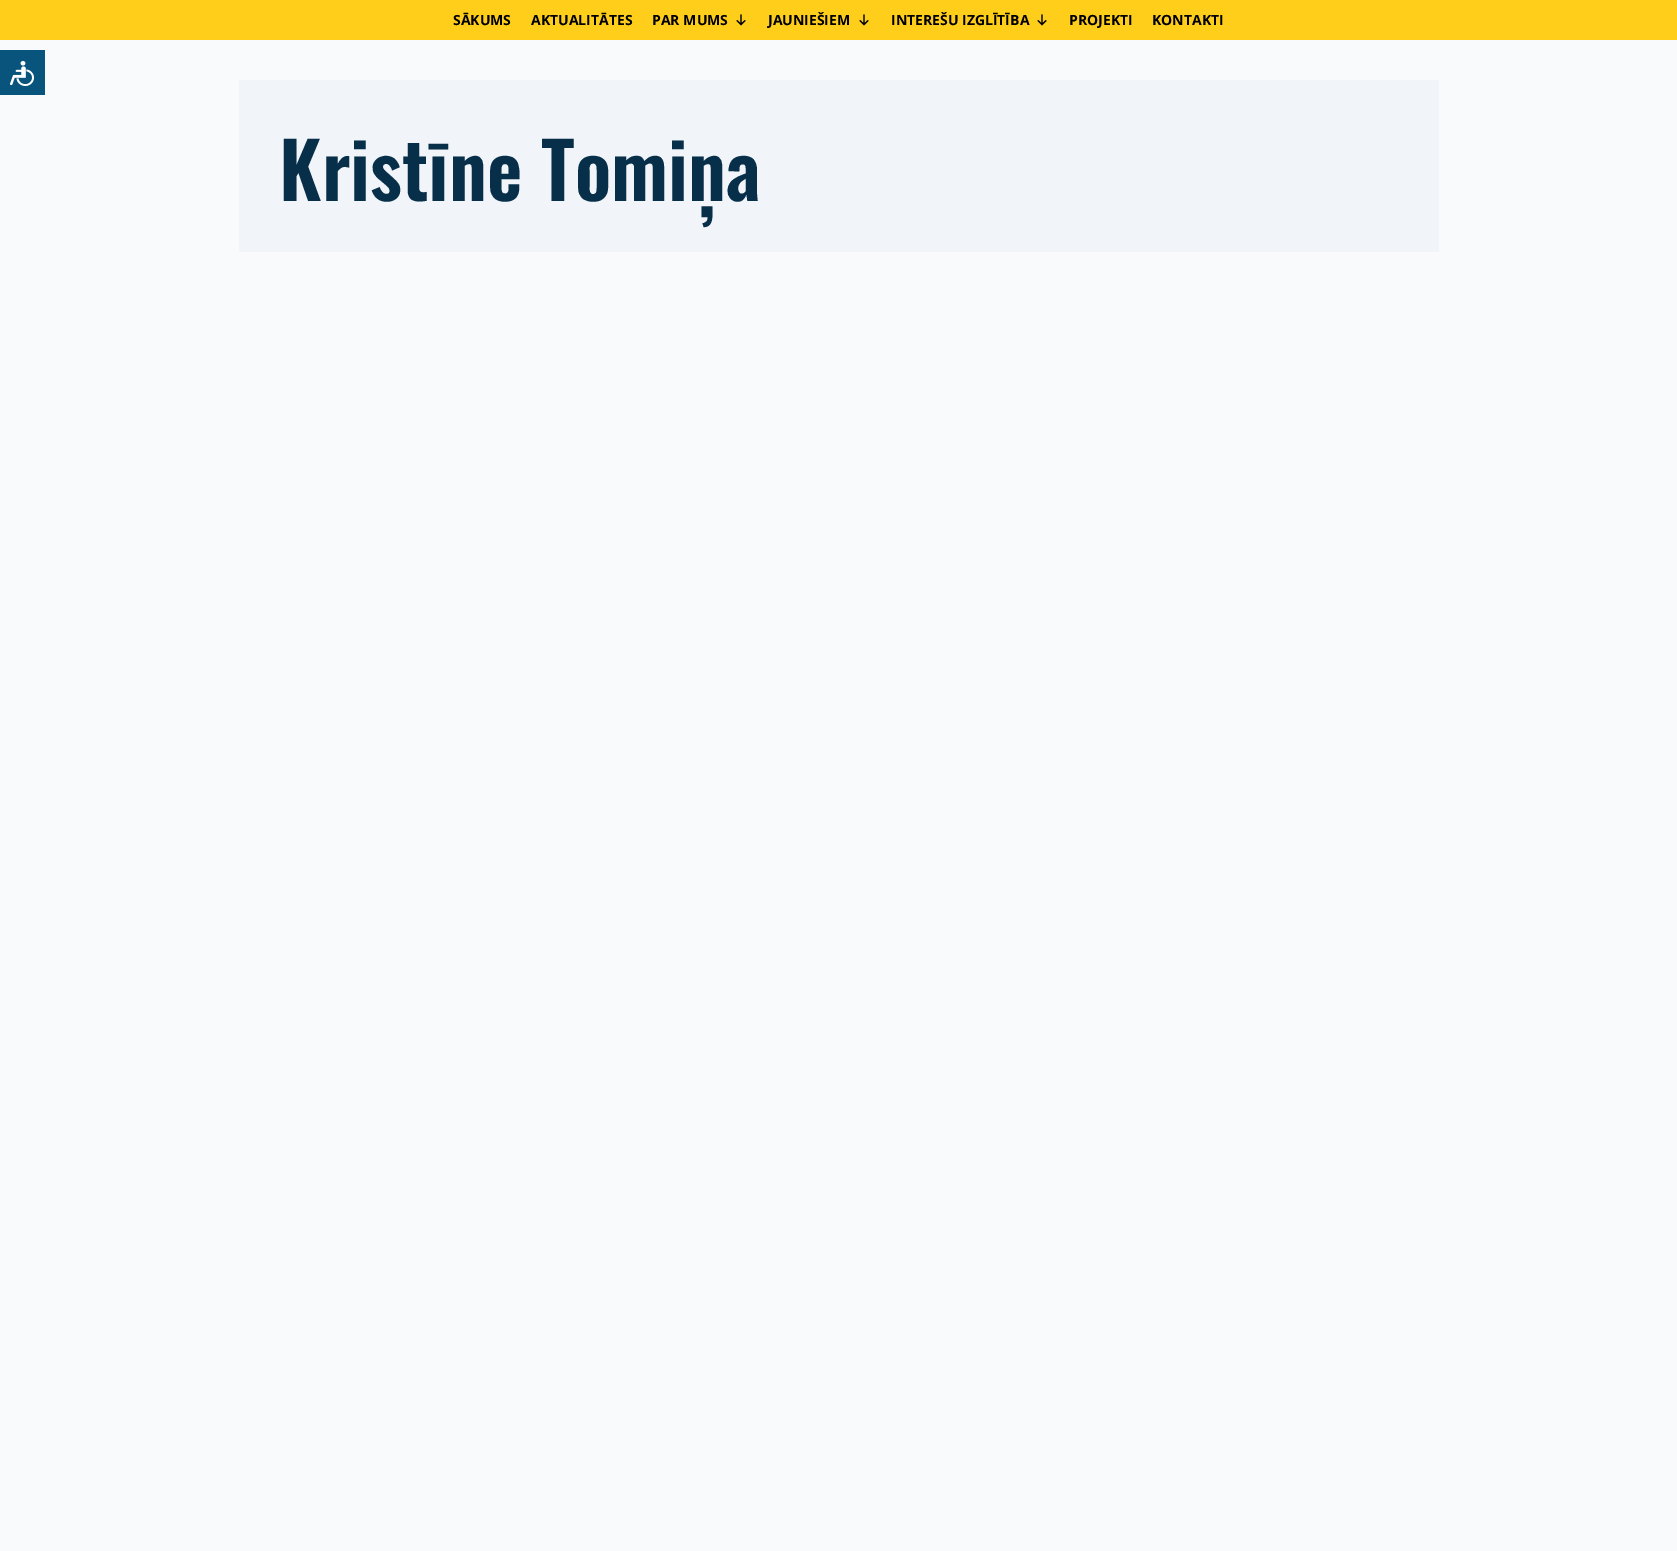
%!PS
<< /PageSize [1677 1551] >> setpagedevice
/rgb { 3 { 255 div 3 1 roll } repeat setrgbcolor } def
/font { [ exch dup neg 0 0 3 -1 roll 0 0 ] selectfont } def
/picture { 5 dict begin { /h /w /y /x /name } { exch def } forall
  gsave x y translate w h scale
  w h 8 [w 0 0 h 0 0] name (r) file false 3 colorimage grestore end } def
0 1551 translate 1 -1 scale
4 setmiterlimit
248 250 252 rgb
0 0 1677 1551 rectfill
9 84 124 rgb
0 50 45 45 rectfill
(img/1.rgb) 10 61 24 25 picture
255 206 27 rgb
0 0 1677 40 rectfill
(img/2.rgb) 736 14 10 12 picture
(img/2.rgb) 859 14 10 12 picture
(img/2.rgb) 1037 14 10 12 picture
241 245 249 rgb
239 80 1200 172 rectfill
/OpenSans-Bold 14 font
0 0 0 rgb
[
  [(SĀKUMS) 453 25]
  [(AKTUALITĀTES) 531 25]
  [(PAR MUMS) 652 25]
  [(JAUNIEŠIEM) 768 25]
  [(INTEREŠU IZGLĪTĪBA) 891 25]
  [(PROJEKTI) 1069 25]
  [(KONTAKTI) 1152 25]
] { aload pop moveto show } forall
/Oswald-SemiBold 77 font
8 47 73 rgb
279 201 moveto (Kristīne Tomiņa) show
showpage
